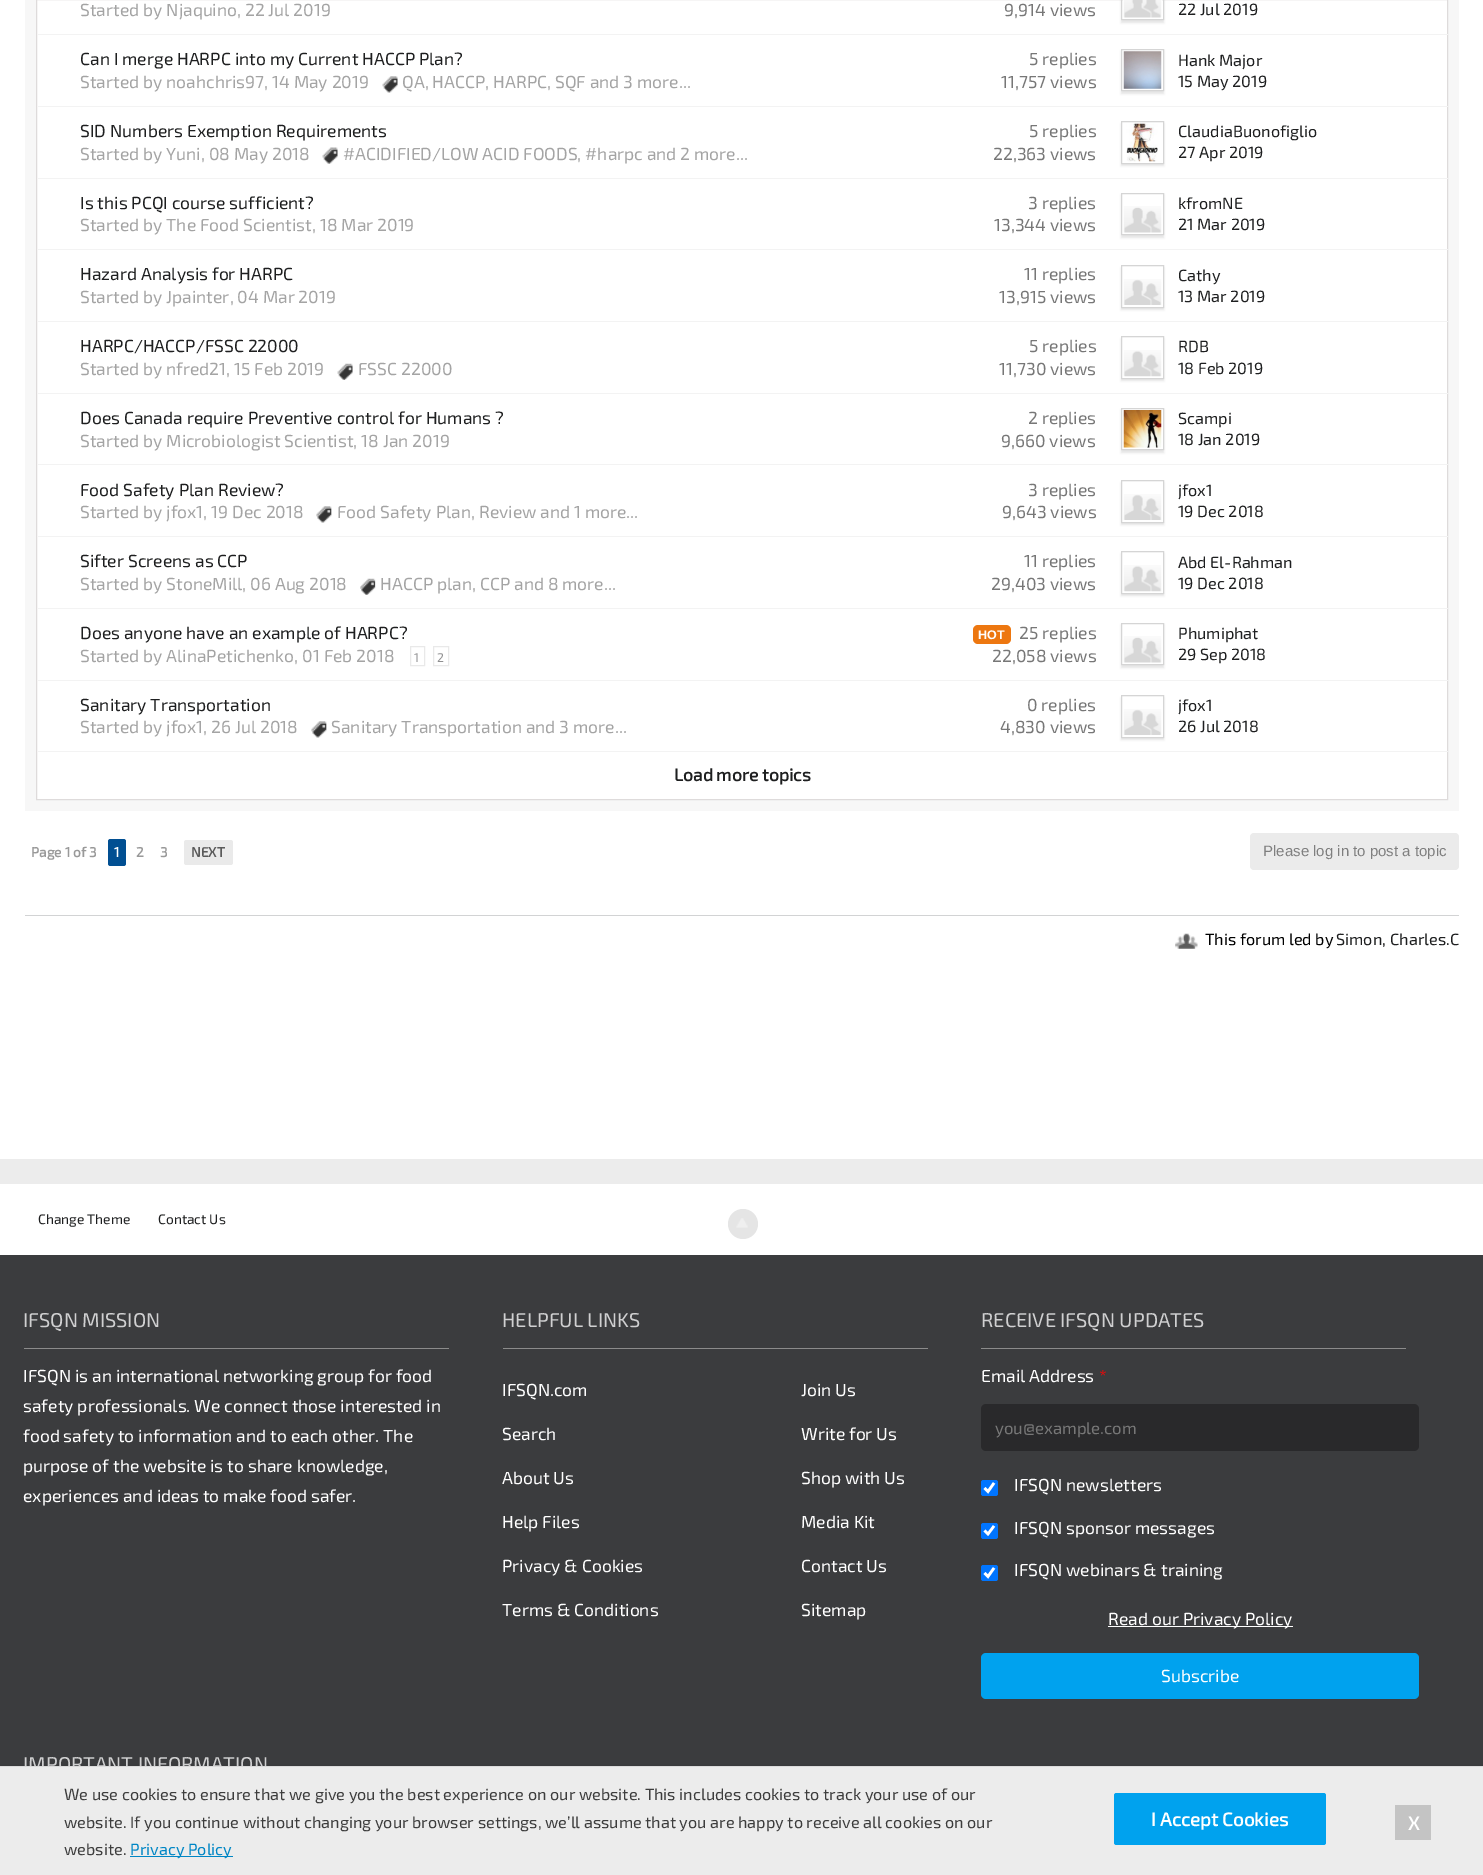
%!PS
<< /PageSize [1483 1875] /PageUsesTransparency true >> setpagedevice
/rgb { 3 { 255 div 3 1 roll } repeat setrgbcolor } def
/font { [ exch dup neg 0 0 3 -1 roll 0 0 ] selectfont } def
/alpha { dup .setfillconstantalpha .setstrokeconstantalpha } def
/circle { newpath 0 360 arc closepath } def
/roundrect { 5 dict begin { /r /h /w /y /x } { exch def } forall
  x r add y moveto x w add y 2 copy h add r arct x w add y h add x 1 index r arct
  x y h add x y r arct x y 2 copy exch w add exch r arct closepath end } def
/shadow { 12 dict begin { /a /b /q /h /w /y /x } { exch def } forall gsave /was 0 def
  9 -2 -9 { dup b mul 4 div /e exch def 1 sub .425 mul 2.718 exch exp 1 add a .99 .min exch div /now exch def
    1 1 now sub 1 was sub div sub alpha /was now def
    w h .min e 2 mul add 0 gt { x e sub y e sub w e 2 mul add h e 2 mul add
      q e add b .6 mul add w h .min 2 div e add .min 0 .max roundrect fill } if } for grestore end } def
/picture { 5 dict begin { /h /w /y /x /name } { exch def } forall
  gsave x y translate w h scale
  w h 8 [w 0 0 h 0 0] name (r) file false 3 colorimage grestore end } def
0 .pushpdf14devicefilter
0 1875 translate 1 -1 scale
4 setmiterlimit
236 236 236 rgb
0 0 1483 1875 rectfill
255 255 255 rgb
0 0 1483 1159 rectfill
247 247 247 rgb
25 0 1434 811 rectfill
255 255 255 rgb
36.5 -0.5 moveto 1447.5 -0.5 lineto 1447.5 799.5 lineto 36.5 799.5 lineto closepath gsave fill grestore
222 219 219 rgb
stroke
243 243 243 rgb
38 34 1410 1 rectfill
0 0 0 rgb
1121 -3 43 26 0 1 0.1 shadow
255 255 255 rgb
1121.5 -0.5 moveto 1163.5 -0.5 lineto 1163.5 19.5 lineto 1121.5 19.5 lineto closepath gsave fill grestore
213 213 213 rgb
stroke
(img/1.rgb) 1123 0 39 18 picture
(img/2.rgb) 382 76 16 17 picture
243 243 243 rgb
38 106 1410 1 rectfill
0 0 0 rgb
1121 51 43 43 0 1 0.1 shadow
255 255 255 rgb
1121.5 49.5 moveto 1163.5 49.5 lineto 1163.5 90.5 lineto 1121.5 90.5 lineto closepath gsave fill grestore
213 213 213 rgb
stroke
(img/3.rgb) 1123 51 39 38 picture
(img/4.rgb) 322 147 16 17 picture
243 243 243 rgb
38 178 1410 1 rectfill
0 0 0 rgb
1121 124 43 42 0 1 0.1 shadow
255 255 255 rgb
1122 123 41 40 rectfill
213 213 213 rgb
1121.5 121.5 42 42 rectstroke
(img/5.rgb) 1126 123 32 39 picture
243 243 243 rgb
38 249 1410 1 rectfill
0 0 0 rgb
1121 195 43 43 0 1 0.1 shadow
255 255 255 rgb
1121.5 193.5 moveto 1163.5 193.5 lineto 1163.5 234.5 lineto 1121.5 234.5 lineto closepath gsave fill grestore
213 213 213 rgb
stroke
(img/6.rgb) 1123 206 39 27 picture
243 243 243 rgb
38 321 1410 1 rectfill
0 0 0 rgb
1121 268 43 42 0 1 0.1 shadow
255 255 255 rgb
1122 267 41 40 rectfill
213 213 213 rgb
1121.5 265.5 42 42 rectstroke
(img/7.rgb) 1123 279 39 26 picture
(img/8.rgb) 337 363 16 17 picture
243 243 243 rgb
38 393 1410 1 rectfill
0 0 0 rgb
1121 339 43 42 0 1 0.1 shadow
255 255 255 rgb
1122 338 41 40 rectfill
213 213 213 rgb
1121.5 336.5 42 42 rectstroke
(img/9.rgb) 1123 350 39 27 picture
243 243 243 rgb
38 464 1410 1 rectfill
0 0 0 rgb
1121 410 43 43 0 1 0.1 shadow
255 255 255 rgb
1121.5 408.5 moveto 1163.5 408.5 lineto 1163.5 449.5 lineto 1121.5 449.5 lineto closepath gsave fill grestore
213 213 213 rgb
stroke
(img/10.rgb) 1123 410 39 38 picture
(img/11.rgb) 316 506 16 17 picture
243 243 243 rgb
38 536 1410 1 rectfill
0 0 0 rgb
1121 483 43 42 0 1 0.1 shadow
255 255 255 rgb
1122 482 41 40 rectfill
213 213 213 rgb
1121.5 480.5 42 42 rectstroke
(img/7.rgb) 1123 494 39 26 picture
(img/12.rgb) 360 578 16 17 picture
243 243 243 rgb
38 608 1410 1 rectfill
0 0 0 rgb
1121 554 43 42 0 1 0.1 shadow
255 255 255 rgb
1122 553 41 40 rectfill
213 213 213 rgb
1121.5 551.5 42 42 rectstroke
(img/9.rgb) 1123 565 39 27 picture
233 233 233 rgb
410.5 646.5 14 19 rectstroke
433.5 646.5 15 19 rectstroke
237 119 16 rgb
973 625 38 19 5 roundrect fill
243 243 243 rgb
38 680 1410 1 rectfill
0 0 0 rgb
1121 625 43 43 0 1 0.1 shadow
255 255 255 rgb
1121.5 623.5 moveto 1163.5 623.5 lineto 1163.5 664.5 lineto 1121.5 664.5 lineto closepath gsave fill grestore
213 213 213 rgb
stroke
(img/6.rgb) 1123 636 39 27 picture
(img/13.rgb) 311 721 16 17 picture
243 243 243 rgb
38 751 1410 1 rectfill
0 0 0 rgb
1121 698 43 42 0 1 0.1 shadow
255 255 255 rgb
1122 697 41 40 rectfill
213 213 213 rgb
1121.5 695.5 42 42 rectstroke
(img/7.rgb) 1123 709 39 26 picture
1 79 146 rgb
108 839 18 27 2.5 roundrect fill
234 234 234 rgb
184 840 49 25 2.5 roundrect fill
235 235 235 rgb
1250 833 209 37 4 roundrect fill
210 211 212 rgb
25 915 1434 1 rectfill
(img/14.rgb) 1175 933 23 16 picture
255 255 255 rgb
0 1184 1483 71 rectfill
229 229 229 rgb
743 1224 15 circle fill
(img/15.rgb) 736 1218 12 10 picture
[
  [0 1255 1483 511 59 60 62]
  [24 1348 425 1 139 139 139]
  [503 1348 425 1 139 139 139]
  [981 1348 425 1 139 139 139]
] { aload pop rgb rectfill } forall
41 41 43 rgb
981 1404 438 47 5 roundrect fill
0 117 255 rgb
981 1480 17 16 2.5 roundrect fill
255 255 255 rgb
2.6 setlinewidth
984.5 1488 moveto 988 1491.5 lineto 994 1483 lineto stroke
0 117 255 rgb
981 1523 17 16 2.5 roundrect fill
255 255 255 rgb
984.5 1530.5 moveto 988 1534 lineto 994 1526 lineto stroke
0 117 255 rgb
981 1565 17 16 2.5 roundrect fill
255 255 255 rgb
984.5 1573 moveto 988 1576.5 lineto 994 1568 lineto stroke
1108 1626 185 1 rectfill
0 162 238 rgb
981 1653 438 46 5 roundrect fill
0 0 0 rgb
0 1766 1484 109 0 3 0.08 shadow
/Exo2-Regular 17.5 font
164 164 164 rgb
80 16 moveto (Started by Njaquino, 22 Jul 2019) show
119 119 119 rgb
1004 16 moveto (9,914 views) show
/Exo2-Regular 16.25 font
30 31 32 rgb
1178 15 moveto (22 Jul 2019) show
/Exo2-Regular 17.5 font
80 65 moveto (Can I merge HARPC into my Current HACCP Plan?) show
164 164 164 rgb
80 88 moveto (Started by noahchris97, 14 May 2019) show
402 88 moveto (QA, HACCP, HARPC, SQF and 3 more...) show
119 119 119 rgb
1029 65 moveto (5 replies) show
1001 88 moveto (11,757 views) show
/Exo2-Regular 16.25 font
30 31 32 rgb
1178 66 moveto (Hank Major) show
1178 87 moveto (15 May 2019) show
/Exo2-Regular 17.5 font
80 137 moveto (SID Numbers Exemption Requirements) show
164 164 164 rgb
80 160 moveto (Started by Yuni, 08 May 2018) show
343 160 moveto (#ACIDIFIED/LOW ACID FOODS, #harpc and 2 more...) show
119 119 119 rgb
1029 137 moveto (5 replies) show
993 160 moveto (22,363 views) show
/Exo2-Regular 16.25 font
30 31 32 rgb
1178 137 moveto (ClaudiaBuonofiglio) show
1178 158 moveto (27 Apr 2019) show
/Exo2-Regular 17.5 font
80 209 moveto (Is this PCQI course sufficient?) show
164 164 164 rgb
80 231 moveto (Started by The Food Scientist, 18 Mar 2019) show
119 119 119 rgb
1028 209 moveto (3 replies) show
994 231 moveto (13,344 views) show
/Exo2-Regular 16.25 font
30 31 32 rgb
1178 209 moveto (kfromNE) show
1178 230 moveto (21 Mar 2019) show
/Exo2-Regular 17.5 font
80 280 moveto (Hazard Analysis for HARPC) show
164 164 164 rgb
80 303 moveto (Started by Jpainter, 04 Mar 2019) show
119 119 119 rgb
1024 280 moveto (11 replies) show
999 303 moveto (13,915 views) show
/Exo2-Regular 16.25 font
30 31 32 rgb
1178 281 moveto (Cathy) show
1178 302 moveto (13 Mar 2019) show
/Exo2-Regular 17.5 font
80 352 moveto (HARPC/HACCP/FSSC 22000) show
164 164 164 rgb
80 375 moveto (Started by nfred21, 15 Feb 2019) show
358 375 moveto (FSSC 22000) show
119 119 119 rgb
1029 352 moveto (5 replies) show
999 375 moveto (11,730 views) show
/Exo2-Regular 16.25 font
30 31 32 rgb
1178 352 moveto (RDB) show
1178 374 moveto (18 Feb 2019) show
/Exo2-Regular 17.5 font
80 424 moveto (Does Canada require Preventive control for Humans ?) show
164 164 164 rgb
80 447 moveto (Started by Microbiologist Scientist, 18 Jan 2019) show
119 119 119 rgb
1028 424 moveto (2 replies) show
1001 447 moveto (9,660 views) show
/Exo2-Regular 16.25 font
30 31 32 rgb
1178 424 moveto (Scampi) show
1178 445 moveto (18 Jan 2019) show
/Exo2-Regular 17.5 font
80 496 moveto (Food Safety Plan Review?) show
164 164 164 rgb
80 518 moveto (Started by jfox1, 19 Dec 2018) show
337 518 moveto (Food Safety Plan, Review and 1 more...) show
119 119 119 rgb
1028 496 moveto (3 replies) show
1002 518 moveto (9,643 views) show
/Exo2-Regular 16.25 font
30 31 32 rgb
1178 496 moveto (jfox1) show
1178 517 moveto (19 Dec 2018) show
/Exo2-Regular 17.5 font
80 567 moveto (Sifter Screens as CCP) show
164 164 164 rgb
80 590 moveto (Started by StoneMill, 06 Aug 2018) show
380 590 moveto (HACCP plan, CCP and 8 more...) show
119 119 119 rgb
1024 567 moveto (11 replies) show
991 590 moveto (29,403 views) show
/Exo2-Regular 16.25 font
30 31 32 rgb
1178 568 moveto (Abd El-Rahman) show
1178 589 moveto (19 Dec 2018) show
/Exo2-Regular 17.5 font
80 639 moveto (Does anyone have an example of HARPC?) show
164 164 164 rgb
80 662 moveto (Started by AlinaPetichenko, 01 Feb 2018) show
/Exo2-Regular 12.5 font
143 143 144 rgb
414 662 moveto (1) show
437 662 moveto (2) show
/LiberationSans-Bold 12.5 font
255 255 255 rgb
978 639 moveto (HOT) show
/Exo2-Regular 17.5 font
119 119 119 rgb
1019 639 moveto (25 replies) show
992 662 moveto (22,058 views) show
/Exo2-Regular 16.25 font
30 31 32 rgb
1178 639 moveto (Phumiphat) show
1178 660 moveto (29 Sep 2018) show
/Exo2-Regular 17.5 font
80 711 moveto (Sanitary Transportation) show
164 164 164 rgb
80 733 moveto (Started by jfox1, 26 Jul 2018) show
331 733 moveto (Sanitary Transportation and 3 more...) show
119 119 119 rgb
1027 711 moveto (0 replies) show
1000 733 moveto (4,830 views) show
/Exo2-Regular 16.25 font
30 31 32 rgb
1178 711 moveto (jfox1) show
1178 732 moveto (26 Jul 2018) show
/Exo2-Bold 17.5 font
674 781 moveto (Load more topics) show
/Exo2-Bold 13.75 font
153 153 153 rgb
31 857 moveto (Page 1 of 3) show
255 255 255 rgb
114 857 moveto (1) show
153 153 153 rgb
136 857 moveto (2) show
160 857 moveto (3) show
90 90 90 rgb
191 857 moveto (NEXT) show
/LiberationSans-Regular 15 font
127 127 127 rgb
1263 856 moveto (Please log in to post a topic) show
/Exo2-Regular 16.25 font
0 0 0 rgb
1205 945 moveto (This forum led by) show
30 31 32 rgb
1336 945 moveto (Simon) show
0 0 0 rgb
1382 945 moveto (,) show
30 31 32 rgb
1390 945 moveto (Charles.C) show
/Exo2-Regular 13.75 font
38 1224 moveto (Change Theme) show
158 1224 moveto (Contact Us) show
/Exo2-Regular 20 font
208 208 209 rgb
23 1327 moveto (IFSQN MISSION) show
/Exo2-Regular 17.5 font
255 255 255 rgb
[
  [(IFSQN is an international networking group for food) 23 1382]
  [(safety professionals. We connect those interested in) 23 1412]
  [(food safety to information and to each other. The) 23 1442]
  [(purpose of the website is to share knowledge,) 23 1472]
  [(experiences and ideas to make food safer.) 23 1502]
] { aload pop moveto show } forall
/Exo2-Regular 20 font
208 208 209 rgb
502 1327 moveto (HELPFUL LINKS) show
/Exo2-Regular 17.5 font
255 255 255 rgb
[
  [(IFSQN.com) 502 1396]
  [(Search) 502 1440]
  [(About Us) 502 1484]
  [(Help Files) 502 1528]
  [(Privacy & Cookies) 502 1572]
  [(Terms & Conditions) 502 1616]
  [(Join Us) 801 1396]
  [(Write for Us) 801 1440]
  [(Shop with Us) 801 1484]
  [(Media Kit) 801 1528]
  [(Contact Us) 801 1572]
  [(Sitemap) 801 1616]
] { aload pop moveto show } forall
/Exo2-Regular 20 font
208 208 209 rgb
981 1327 moveto (RECEIVE IFSQN UPDATES) show
/Exo2-Regular 17.5 font
255 255 255 rgb
981 1382 moveto (Email Address) show
255 0 0 rgb
1099 1382 moveto (*) show
/Exo2-Regular 16.75 font
119 119 119 rgb
995 1434 moveto (you@example.com) show
/Exo2-Regular 17.5 font
255 255 255 rgb
[
  [(IFSQN newsletters) 1014 1491]
  [(IFSQN sponsor messages) 1014 1534]
  [(IFSQN webinars & training) 1014 1576]
  [(Read our Privacy Policy) 1108 1625]
  [(Subscribe) 1161 1682]
] { aload pop moveto show } forall
/Exo2-Regular 20 font
208 208 209 rgb
23 1771 moveto (IMPORTANT INFORMATION) show
236 236 236 rgb
0 1767 1483 108 rectfill
219 219 219 rgb
0 1766 1483 1 rectfill
/Exo2-Regular 16.25 font
61 61 61 rgb
[
  [(We use cookies to ensure that we give you the best experience on our website. This includes cookies to track your use of our) 64 1800]
  [(website. If you continue without changing your browser settings, we’ll assume that you are happy to receive all cookies on our) 64 1828]
  [(website.) 64 1855]
] { aload pop moveto show } forall
0 134 197 rgb
130 1856 103 1 rectfill
130 1855 moveto (Privacy Policy) show
0 162 238 rgb
1114 1793 212 52 2.5 roundrect fill
/Exo2-Bold 18.75 font
255 255 255 rgb
1151 1826 moveto (I Accept Cookies) show
196 196 196 rgb
1395 1805 36 35 rectfill
255 255 255 rgb
1408 1830 moveto (X) show
.poppdf14devicefilter showpage
